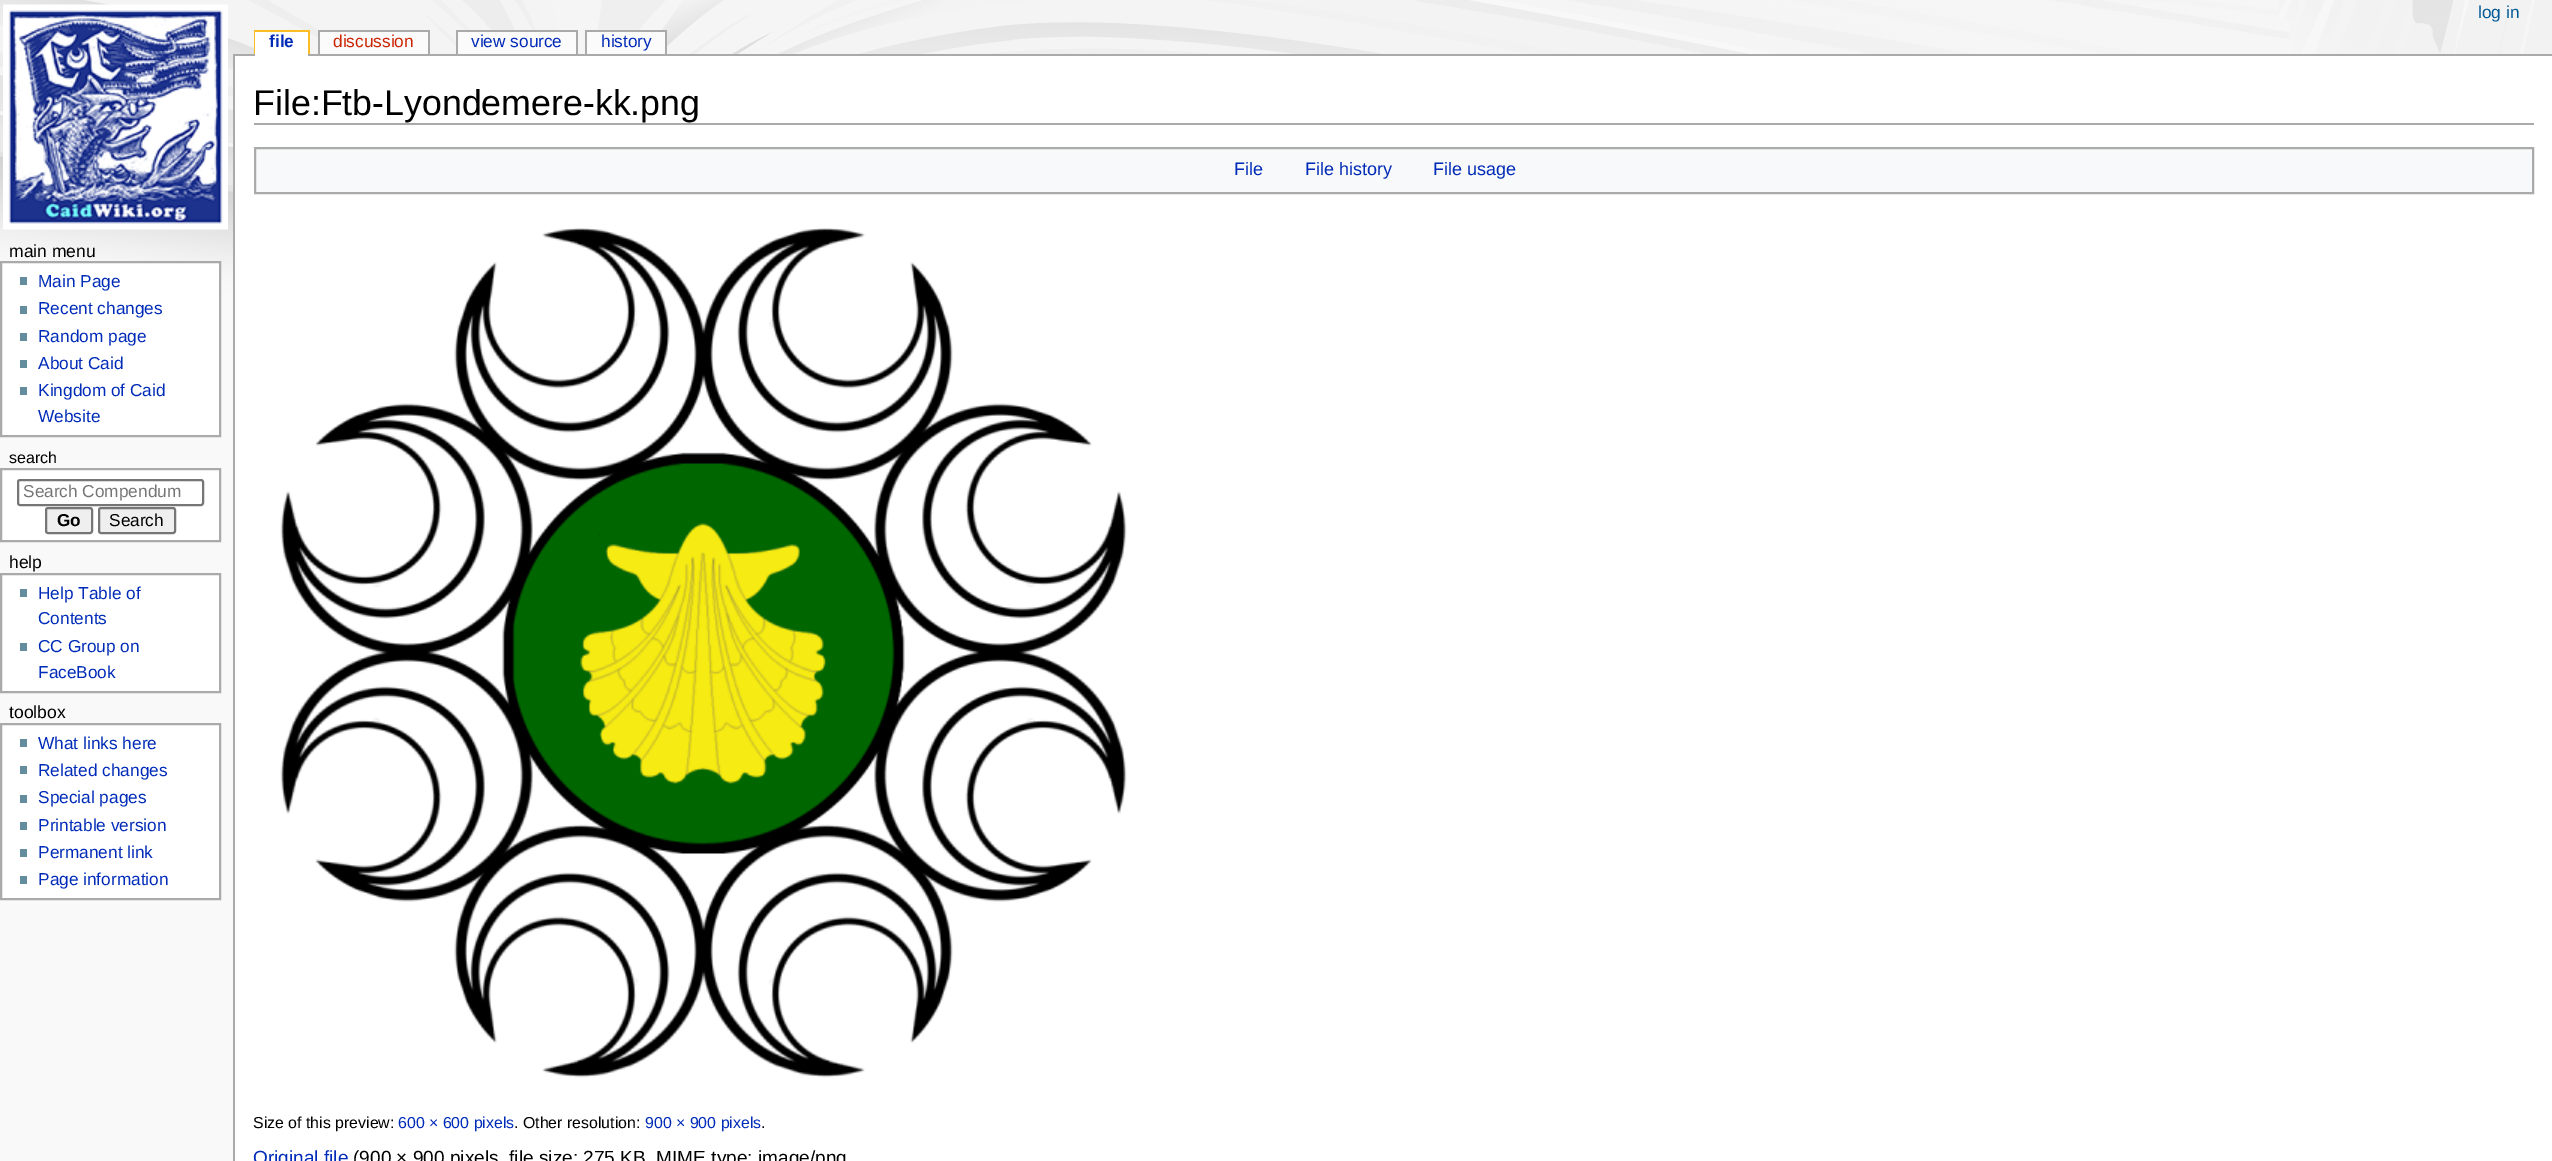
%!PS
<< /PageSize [2552 1161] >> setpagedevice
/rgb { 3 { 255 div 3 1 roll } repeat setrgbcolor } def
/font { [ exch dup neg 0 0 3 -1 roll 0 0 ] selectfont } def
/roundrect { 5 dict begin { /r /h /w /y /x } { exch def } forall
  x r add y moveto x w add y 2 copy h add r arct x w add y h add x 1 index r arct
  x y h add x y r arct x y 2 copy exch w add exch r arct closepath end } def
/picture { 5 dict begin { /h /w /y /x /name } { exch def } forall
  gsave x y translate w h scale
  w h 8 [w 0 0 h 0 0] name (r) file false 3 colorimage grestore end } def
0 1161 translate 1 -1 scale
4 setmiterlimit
249 249 249 rgb
0 0 2552 1161 rectfill
(img/1.rgb) 0 0 2552 315 picture
(img/2.rgb) 3 4 225 226 picture
[
  [254 30 55 2 250 189 35]
  [308 30 2 24 250 189 35]
  [254 30 2 24 250 189 35]
  [233 54 2319 2 170 170 170]
  [255 32 53 24 255 255 255]
  [318 30 111 2 170 170 170]
  [428 30 2 24 170 170 170]
  [318 30 2 24 170 170 170]
  [320 32 108 22 251 251 251]
  [456 30 122 2 170 170 170]
  [576 30 2 24 170 170 170]
  [456 30 2 24 170 170 170]
  [458 32 118 22 251 251 251]
  [585 30 81 2 170 170 170]
  [665 30 2 24 170 170 170]
  [585 30 2 24 170 170 170]
  [587 32 78 22 251 251 251]
] { aload pop rgb rectfill } forall
255 255 255 rgb
1 262 moveto 220 262 lineto 220 436 lineto 1 436 lineto closepath gsave fill grestore
170 170 170 rgb
2 setlinewidth
stroke
[
  [20 277 7 8 99 140 156]
  [20 306 7 8 99 140 156]
  [20 333 7 8 99 140 156]
  [20 360 7 8 99 140 156]
  [20 387 7 8 99 140 156]
] { aload pop rgb rectfill } forall
255 255 255 rgb
1 469 moveto 220 469 lineto 220 541 lineto 1 541 lineto closepath gsave fill grestore
170 170 170 rgb
stroke
118 118 118 rgb
18 480 185 25 2 roundrect stroke
239 239 239 rgb
46 508 46 25 2 roundrect gsave fill grestore
118 118 118 rgb
stroke
239 239 239 rgb
99 508 76 25 2 roundrect gsave fill grestore
118 118 118 rgb
stroke
255 255 255 rgb
1 574 moveto 220 574 lineto 220 692 lineto 1 692 lineto closepath gsave fill grestore
170 170 170 rgb
stroke
99 140 156 rgb
20 589 7 8 rectfill
20 643 7 8 rectfill
255 255 255 rgb
1 724 moveto 220 724 lineto 220 899 lineto 1 899 lineto closepath gsave fill grestore
170 170 170 rgb
stroke
[
  [20 739 7 8 99 140 156]
  [20 766 7 8 99 140 156]
  [20 795 7 8 99 140 156]
  [20 822 7 8 99 140 156]
  [20 849 7 8 99 140 156]
  [20 876 7 8 99 140 156]
  [235 56 2317 1105 255 255 255]
  [233 54 2 1107 170 170 170]
  [254 123 2280 2 170 170 170]
] { aload pop rgb rectfill } forall
248 249 250 rgb
255 148 moveto 2533 148 lineto 2533 193 lineto 255 193 lineto closepath gsave fill grestore
170 170 170 rgb
stroke
(img/3.rgb) 280 228 847 850 picture
/LiberationSans-Regular 17.25 font
0 88 150 rgb
2478 18 moveto (log in) show
/LiberationSans-Bold 17.25 font
0 43 184 rgb
269 47 moveto (file) show
/LiberationSans-Regular 17.25 font
204 34 0 rgb
333 47 moveto (discussion) show
0 43 184 rgb
471 47 moveto (view source) show
601 47 moveto (history) show
/LiberationSans-Regular 17.5 font
0 0 0 rgb
9 257 moveto (main menu) show
/LiberationSans-Regular 17.25 font
0 43 184 rgb
[
  [(Main Page) 38 287]
  [(Recent changes) 38 314]
  [(Random page) 38 342]
  [(About Caid) 38 369]
  [(Kingdom of Caid) 38 396]
  [(Website) 38 422]
] { aload pop moveto show } forall
/LiberationSans-Regular 16 font
0 0 0 rgb
9 463 moveto (search) show
/LiberationSans-Regular 17.25 font
117 117 117 rgb
23 497 moveto (Search Compendum) show
/LiberationSans-Bold 17.25 font
0 0 0 rgb
57 526 moveto (Go) show
/LiberationSans-Regular 17.25 font
109 526 moveto (Search) show
/LiberationSans-Regular 17.5 font
9 568 moveto (help) show
/LiberationSans-Regular 17.25 font
0 43 184 rgb
[
  [(Help Table of) 38 599]
  [(Contents) 38 624]
  [(CC Group on) 38 652]
  [(FaceBook) 38 678]
] { aload pop moveto show } forall
/LiberationSans-Regular 17.5 font
0 0 0 rgb
9 718 moveto (toolbox) show
/LiberationSans-Regular 17.25 font
0 43 184 rgb
[
  [(What links here) 38 749]
  [(Related changes) 38 776]
  [(Special pages) 38 803]
  [(Printable version) 38 831]
  [(Permanent link) 38 858]
  [(Page information) 38 885]
] { aload pop moveto show } forall
/LiberationSans-Regular 35.75 font
0 0 0 rgb
253 115 moveto (File:Ftb-Lyondemere-kk.png) show
/LiberationSans-Regular 18 font
0 43 184 rgb
[
  [(File) 1234 175]
  [(File history) 1305 175]
  [(File usage) 1433 175]
] { aload pop moveto show } forall
/LiberationSans-Regular 15.9 font
0 0 0 rgb
253 1128 moveto (Size of this preview:) show
0 43 184 rgb
398 1128 moveto (600 × 600 pixels) show
0 0 0 rgb
514 1128 moveto (. Other resolution:) show
0 43 184 rgb
645 1128 moveto (900 × 900 pixels) show
0 0 0 rgb
761 1128 moveto (.) show
/LiberationSans-Regular 19.05 font
0 43 184 rgb
253 1164 moveto (Original file) show
0 0 0 rgb
353 1164 moveto (\(900 × 900 pixels, file size: 275 KB, MIME type:) show
758 1164 moveto (image/png) show
showpage
